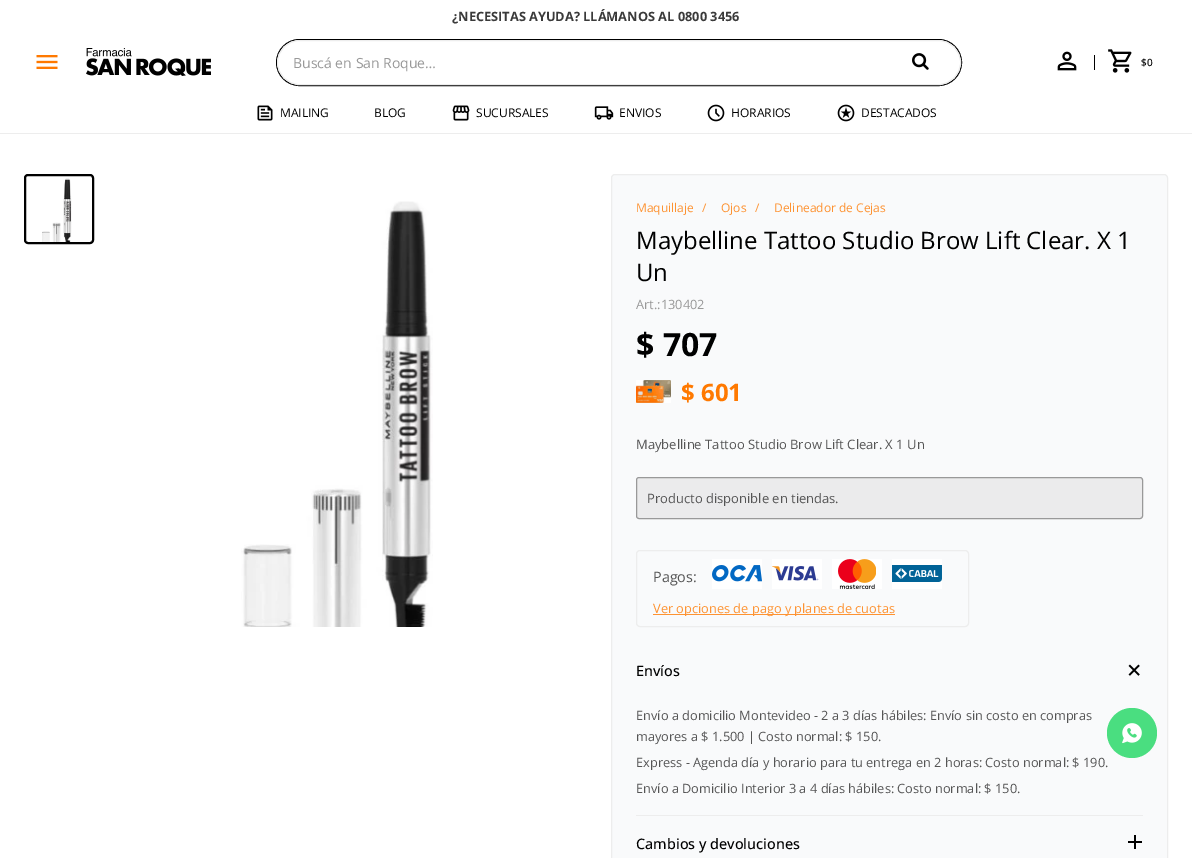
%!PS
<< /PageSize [1192 858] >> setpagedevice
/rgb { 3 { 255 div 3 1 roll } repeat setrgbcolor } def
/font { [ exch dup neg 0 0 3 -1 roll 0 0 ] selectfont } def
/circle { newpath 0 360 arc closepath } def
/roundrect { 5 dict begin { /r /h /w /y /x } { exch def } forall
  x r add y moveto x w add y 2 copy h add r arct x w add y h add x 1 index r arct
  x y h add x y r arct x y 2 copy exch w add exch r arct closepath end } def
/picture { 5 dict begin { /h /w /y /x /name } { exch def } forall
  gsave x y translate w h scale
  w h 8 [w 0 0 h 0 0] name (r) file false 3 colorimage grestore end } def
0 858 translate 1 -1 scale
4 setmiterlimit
255 255 255 rgb
0 0 1192 858 rectfill
(img/1.rgb) 36 55 22 14 picture
(img/2.rgb) 86 48 125 28 picture
0 0 0 rgb
276.5 39.5 685 46 23 roundrect stroke
255 255 255 rgb
277.5 40.5 683 44 22 roundrect gsave fill grestore
237 237 237 rgb
stroke
(img/3.rgb) 912 53 17 17 picture
(img/4.rgb) 1057 51 20 20 picture
0 0 0 rgb
1094 55 1 15 rectfill
(img/5.rgb) 1108 49 24 24 picture
(img/6.rgb) 257 105 16 16 picture
(img/7.rgb) 452 105 18 16 picture
(img/8.rgb) 594 106 20 14 picture
(img/9.rgb) 707 104 18 18 picture
(img/10.rgb) 837 104 18 18 picture
237 237 237 rgb
0 133 1192 1 rectfill
(img/11.rgb) 42 178 30 64 picture
0 0 0 rgb
2 setlinewidth
25 175 68 68 3 roundrect stroke
(img/12.rgb) 241 201 192 426 picture
249 250 251 rgb
611.5 174.5 556 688 3.5 roundrect gsave fill grestore
237 237 237 rgb
1 setlinewidth
stroke
(img/13.rgb) 636 380 35 23 picture
235 235 236 rgb
636.5 477.5 506 41 2.5 roundrect gsave fill grestore
153 153 153 rgb
stroke
237 237 237 rgb
636.5 550.5 332 76 3.5 roundrect stroke
255 255 255 rgb
712 559 50 30 rectfill
(img/14.rgb) 712 565 50 17 picture
772 559 50 30 rectfill
(img/15.rgb) 772 566 47 15 picture
832 559 50 30 rectfill
(img/16.rgb) 838 559 38 30 picture
892 559 50 30 rectfill
(img/17.rgb) 892 565 50 17 picture
254 147 50 rgb
653 614 242 1 rectfill
237 237 237 rgb
636 815 507 1 rectfill
(img/18.rgb) 1128 664 12 12 picture
(img/19.rgb) 1128 835 14 14 picture
/OpenSans-Bold 12.8 font
58 58 58 rgb
452 21 moveto (¿NECESITAS AYUDA? LLÁMANOS AL 0800 3456) show
/OpenSans-Regular 14 font
153 153 153 rgb
293 68 moveto (Buscá en San Roque…) show
/OpenSans-Medium 10 font
0 0 0 rgb
1141 66 moveto ($0) show
/OpenSans-Regular 12 font
[
  [(MAILING) 280 117]
  [(BLOG) 374 117]
  [(SUCURSALES) 476 117]
  [(ENVIOS) 619 117]
  [(HORARIOS) 731 117]
  [(DESTACADOS) 861 117]
] { aload pop moveto show } forall
254 147 50 rgb
[
  [(Maquillaje) 636 212]
  [(/) 702 212]
  [(Ojos) 721 212]
  [(/) 755 212]
  [(Delineador de Cejas) 774 212]
] { aload pop moveto show } forall
/OpenSans-Regular 24 font
0 0 0 rgb
636 249 moveto (Maybelline Tattoo Studio Brow Lift Clear. X 1) show
636 281 moveto (Un) show
/OpenSans-Regular 12.8 font
153 153 153 rgb
636 309 moveto (Art.:130402) show
/OpenSans-Bold 32 font
0 0 0 rgb
636 356 moveto ($ 707) show
/OpenSans-Bold 24 font
255 121 0 rgb
681 401 moveto ($ 601) show
/OpenSans-Regular 13 font
85 85 85 rgb
636 449 moveto (Maybelline Tattoo Studio Brow Lift Clear. X 1 Un) show
647 503 moveto (Producto disponible en tiendas.) show
/OpenSans-Regular 14.4 font
653 582 moveto (Pagos:) show
/OpenSans-Regular 12.8 font
254 147 50 rgb
653 613 moveto (Ver opciones de pago y planes de cuotas) show
/OpenSans-Medium 14.4 font
0 0 0 rgb
636 676 moveto (Envíos) show
/OpenSans-Regular 12.8 font
85 85 85 rgb
[
  [(Envío a domicilio Montevideo - 2 a 3 días hábiles: Envío sin costo en compras) 636 720]
  [(mayores a $ 1.500 | Costo normal: $ 150.) 636 741]
  [(Express - Agenda día y horario para tu entrega en 2 horas: Costo normal: $ 190.) 636 767]
  [(Envío a Domicilio Interior 3 a 4 días hábiles: Costo normal: $ 150.) 636 793]
] { aload pop moveto show } forall
/OpenSans-Medium 14.4 font
0 0 0 rgb
636 849 moveto (Cambios y devoluciones) show
74 222 128 rgb
1132 733 25 circle fill
(img/20.rgb) 1122 723 20 21 picture
showpage
